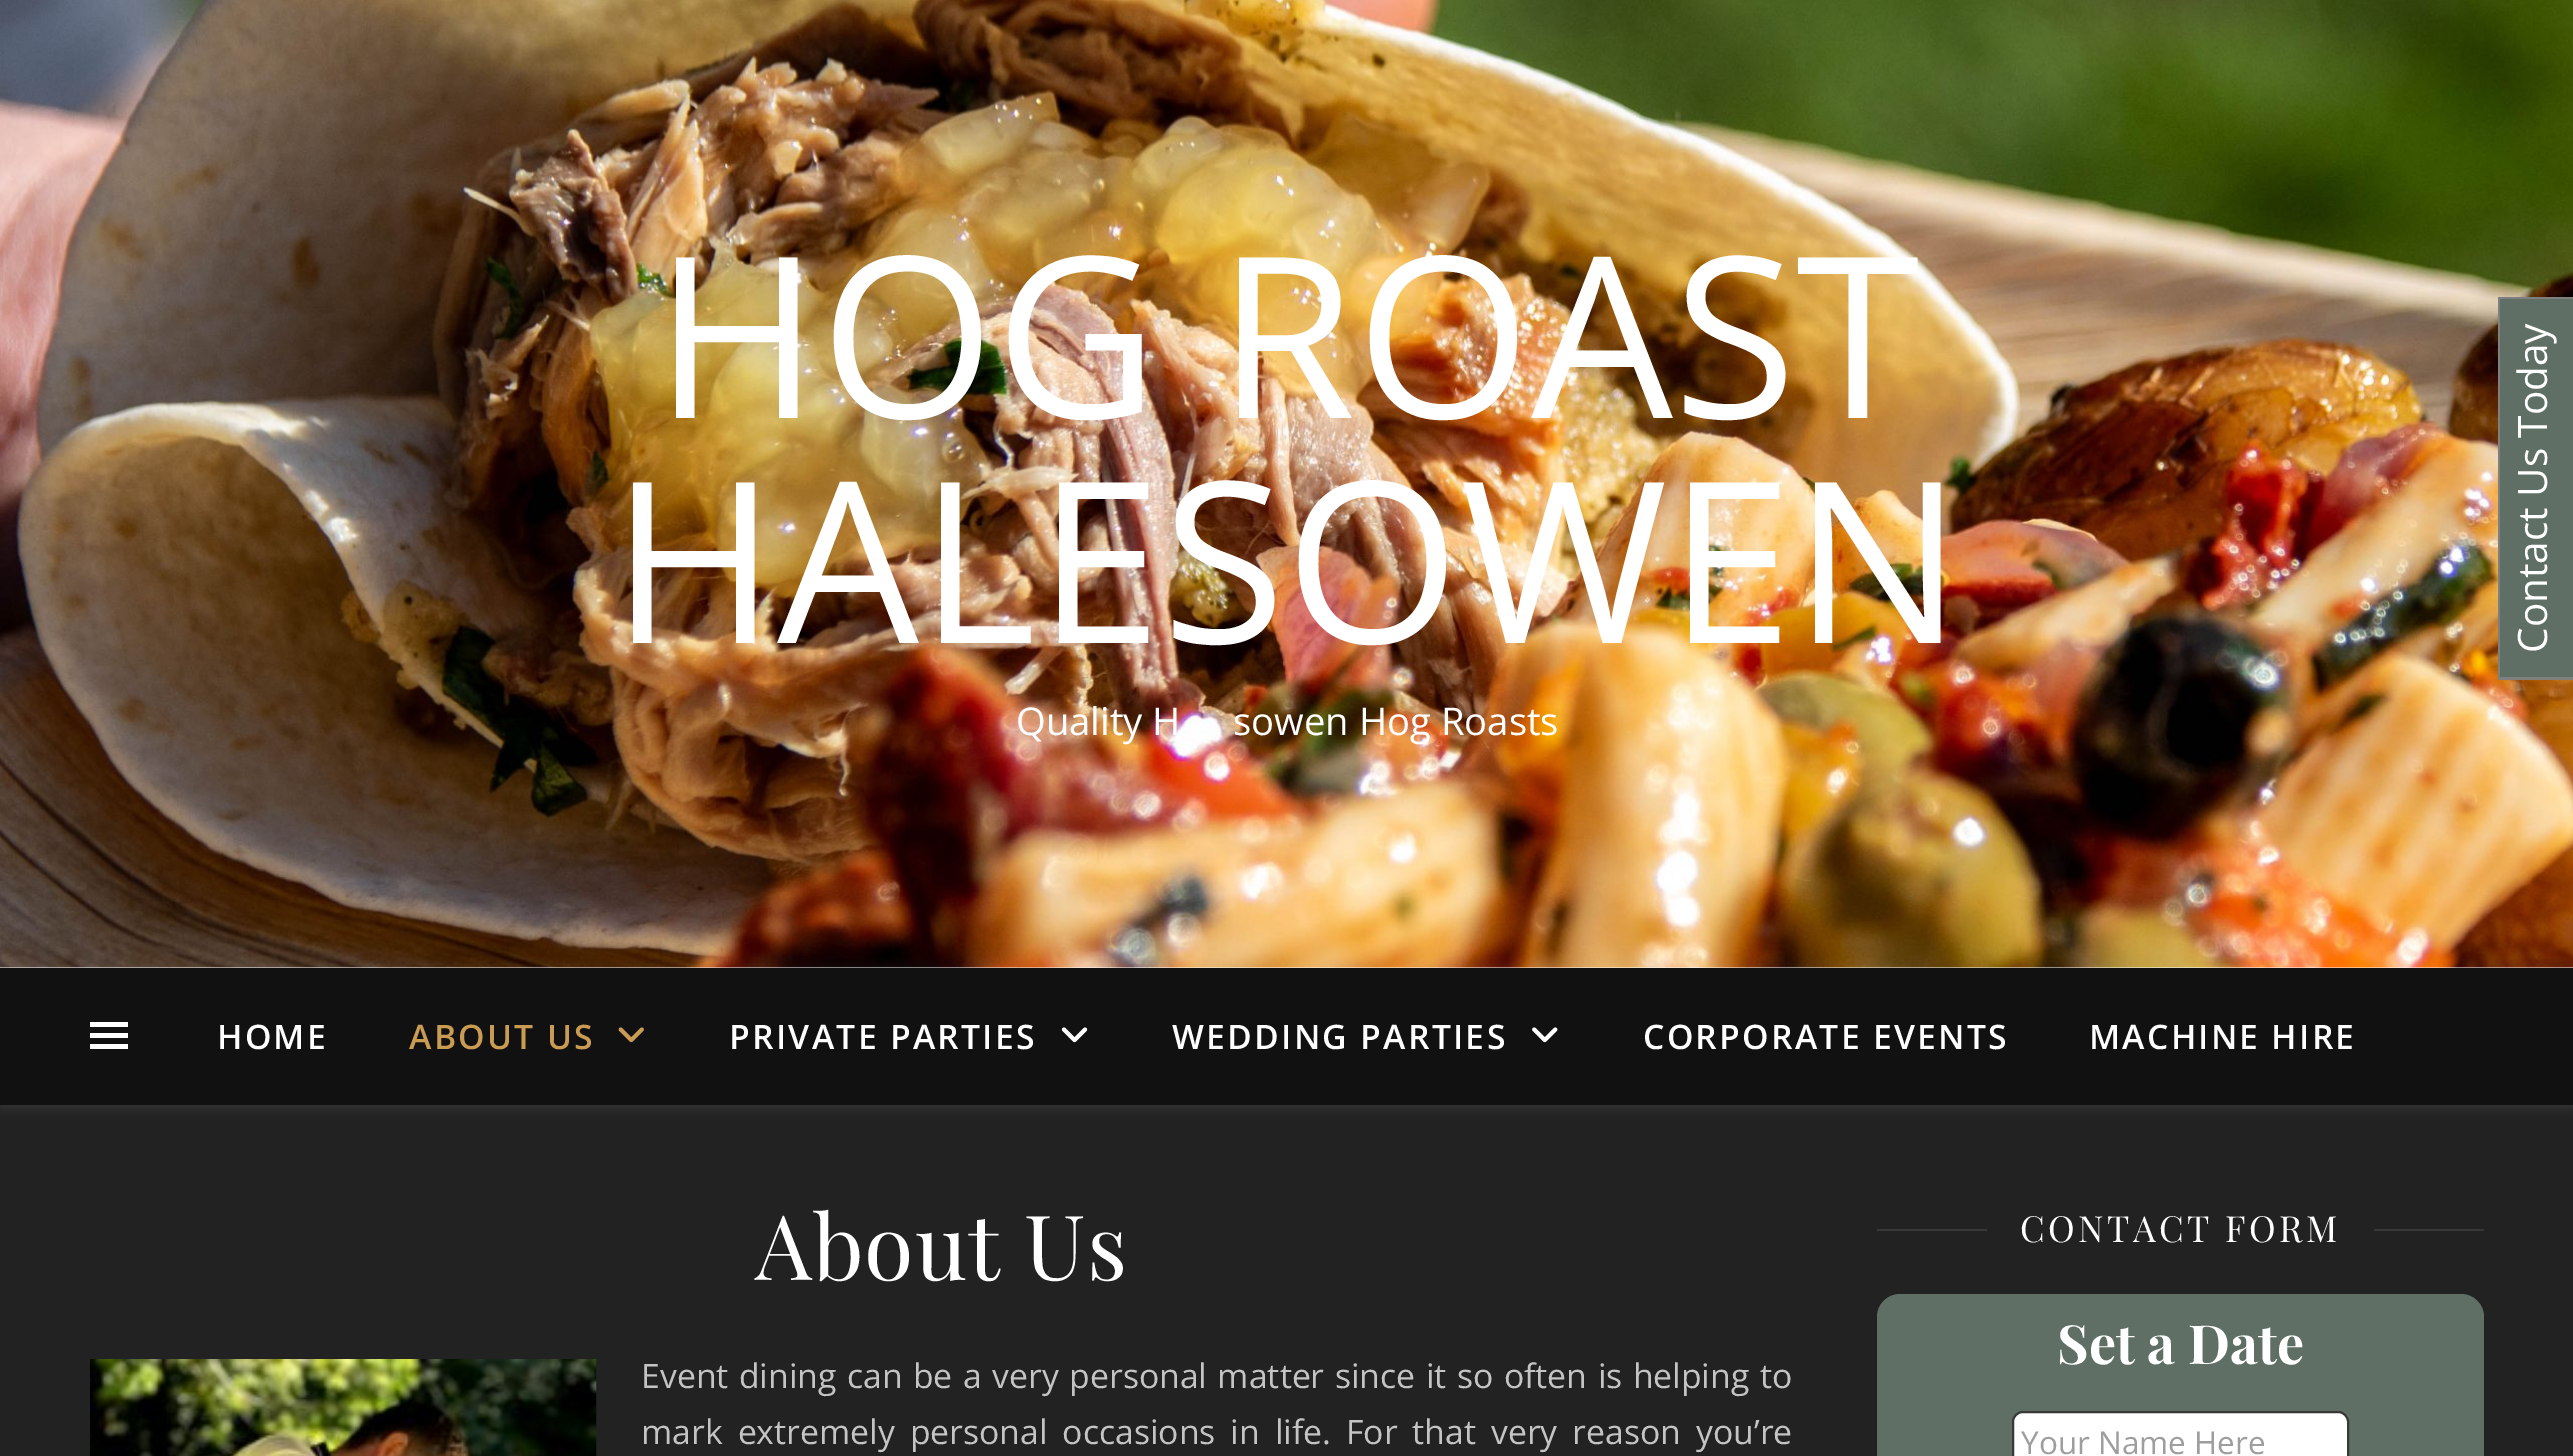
%!PS
<< /PageSize [2573 1456] /PageUsesTransparency true >> setpagedevice
/rgb { 3 { 255 div 3 1 roll } repeat setrgbcolor } def
/font { [ exch dup neg 0 0 3 -1 roll 0 0 ] selectfont } def
/alpha { dup .setfillconstantalpha .setstrokeconstantalpha } def
/roundrect { 5 dict begin { /r /h /w /y /x } { exch def } forall
  x r add y moveto x w add y 2 copy h add r arct x w add y h add x 1 index r arct
  x y h add x y r arct x y 2 copy exch w add exch r arct closepath end } def
/shadow { 12 dict begin { /a /b /q /h /w /y /x } { exch def } forall gsave /was 0 def
  9 -2 -9 { dup b mul 4 div /e exch def 1 sub .425 mul 2.718 exch exp 1 add a .99 .min exch div /now exch def
    1 1 now sub 1 was sub div sub alpha /was now def
    w h .min e 2 mul add 0 gt { x e sub y e sub w e 2 mul add h e 2 mul add
      q e add b .6 mul add w h .min 2 div e add .min 0 .max roundrect fill } if } for grestore end } def
/picture { 5 dict begin { /h /w /y /x /name } { exch def } forall
  gsave x y translate w h scale
  w h 8 [w 0 0 h 0 0] name (r) file false 3 colorimage grestore end } def
0 .pushpdf14devicefilter
0 1456 translate 1 -1 scale
4 setmiterlimit
34 34 34 rgb
0 0 2573 1456 rectfill
255 255 255 rgb
0 967 2573 1 rectfill
(img/1.rgb) 0 0 2573 968 picture
0 970 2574 137 0 5.5 0.1 shadow
[
  [0 968 2573 137 17 17 17]
  [90 1022 38 5 255 255 255]
  [90 1033 38 5 255 255 255]
  [90 1044 38 5 255 255 255]
] { aload pop rgb rectfill } forall
(img/2.rgb) 618 1027 26 16 picture
(img/3.rgb) 1061 1027 27 16 picture
(img/4.rgb) 1532 1027 26 16 picture
(img/5.rgb) 90 1359 507 97 picture
56 56 56 rgb
1877 1229 110 2 rectfill
2374 1229 110 2 rectfill
95 111 101 rgb
1877 1294 607 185 23 roundrect fill
255 255 255 rgb
2013 1412 335 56 10 roundrect gsave fill grestore
56 56 56 rgb
2 setlinewidth
stroke
[
  [2500 299 73 378 95 111 101]
  [2498 297 2 383 127 127 127]
  [2498 297 75 2 127 127 127]
  [2498 677 75 3 127 127 127]
] { aload pop rgb rectfill } forall
/OpenSans-Regular 225 font
255 255 255 rgb
654 418 moveto (HOG ROAST) show
611 643 moveto (HALESOWEN) show
/OpenSans-Regular 38.25 font
1016 735 moveto (Quality H) show
1233 735 moveto (sowen Hog Roasts) show
/OpenSans-SemiBold 33.75 font
217 1049 moveto 2.25 0 (HOME) ashow
202 155 82 rgb
409 1049 moveto 2.25 0 (ABOUT US) ashow
255 255 255 rgb
729 1049 moveto 2.25 0 (PRIVATE PARTIES) ashow
1172 1049 moveto 2.25 0 (WEDDING PARTIES) ashow
1643 1049 moveto 2.25 0 (CORPORATE EVENTS) ashow
2089 1049 moveto 2.25 0 (MACHINE HIRE) ashow
/PlayfairDisplay-Regular 90 font
755 1280 moveto 1 0 (About Us) ashow
/OpenSans-Regular 33.75 font
196 196 196 rgb
641 1388 moveto 1.75 0 32 (Event dining can be a very personal matter since it so often is helping to) widthshow
641 1444 moveto 6.25 0 32 (mark extremely personal occasions in life. For that very reason you’re) widthshow
/PlayfairDisplay-Regular 36 font
255 255 255 rgb
2020 1242 moveto 3.4 0 (CONTACT FORM) ashow
/PlayfairDisplay-Bold 54 font
2057 1364 moveto (Set a Date) show
/OpenSans-Regular 31.5 font
158 158 158 rgb
2021 1454 moveto (Your Name Here) show
/OpenSans-Regular 40.5 font
255 255 255 rgb
gsave 2547 653 translate -90 rotate 0 0 moveto (Contact Us Today) show grestore
.poppdf14devicefilter showpage
